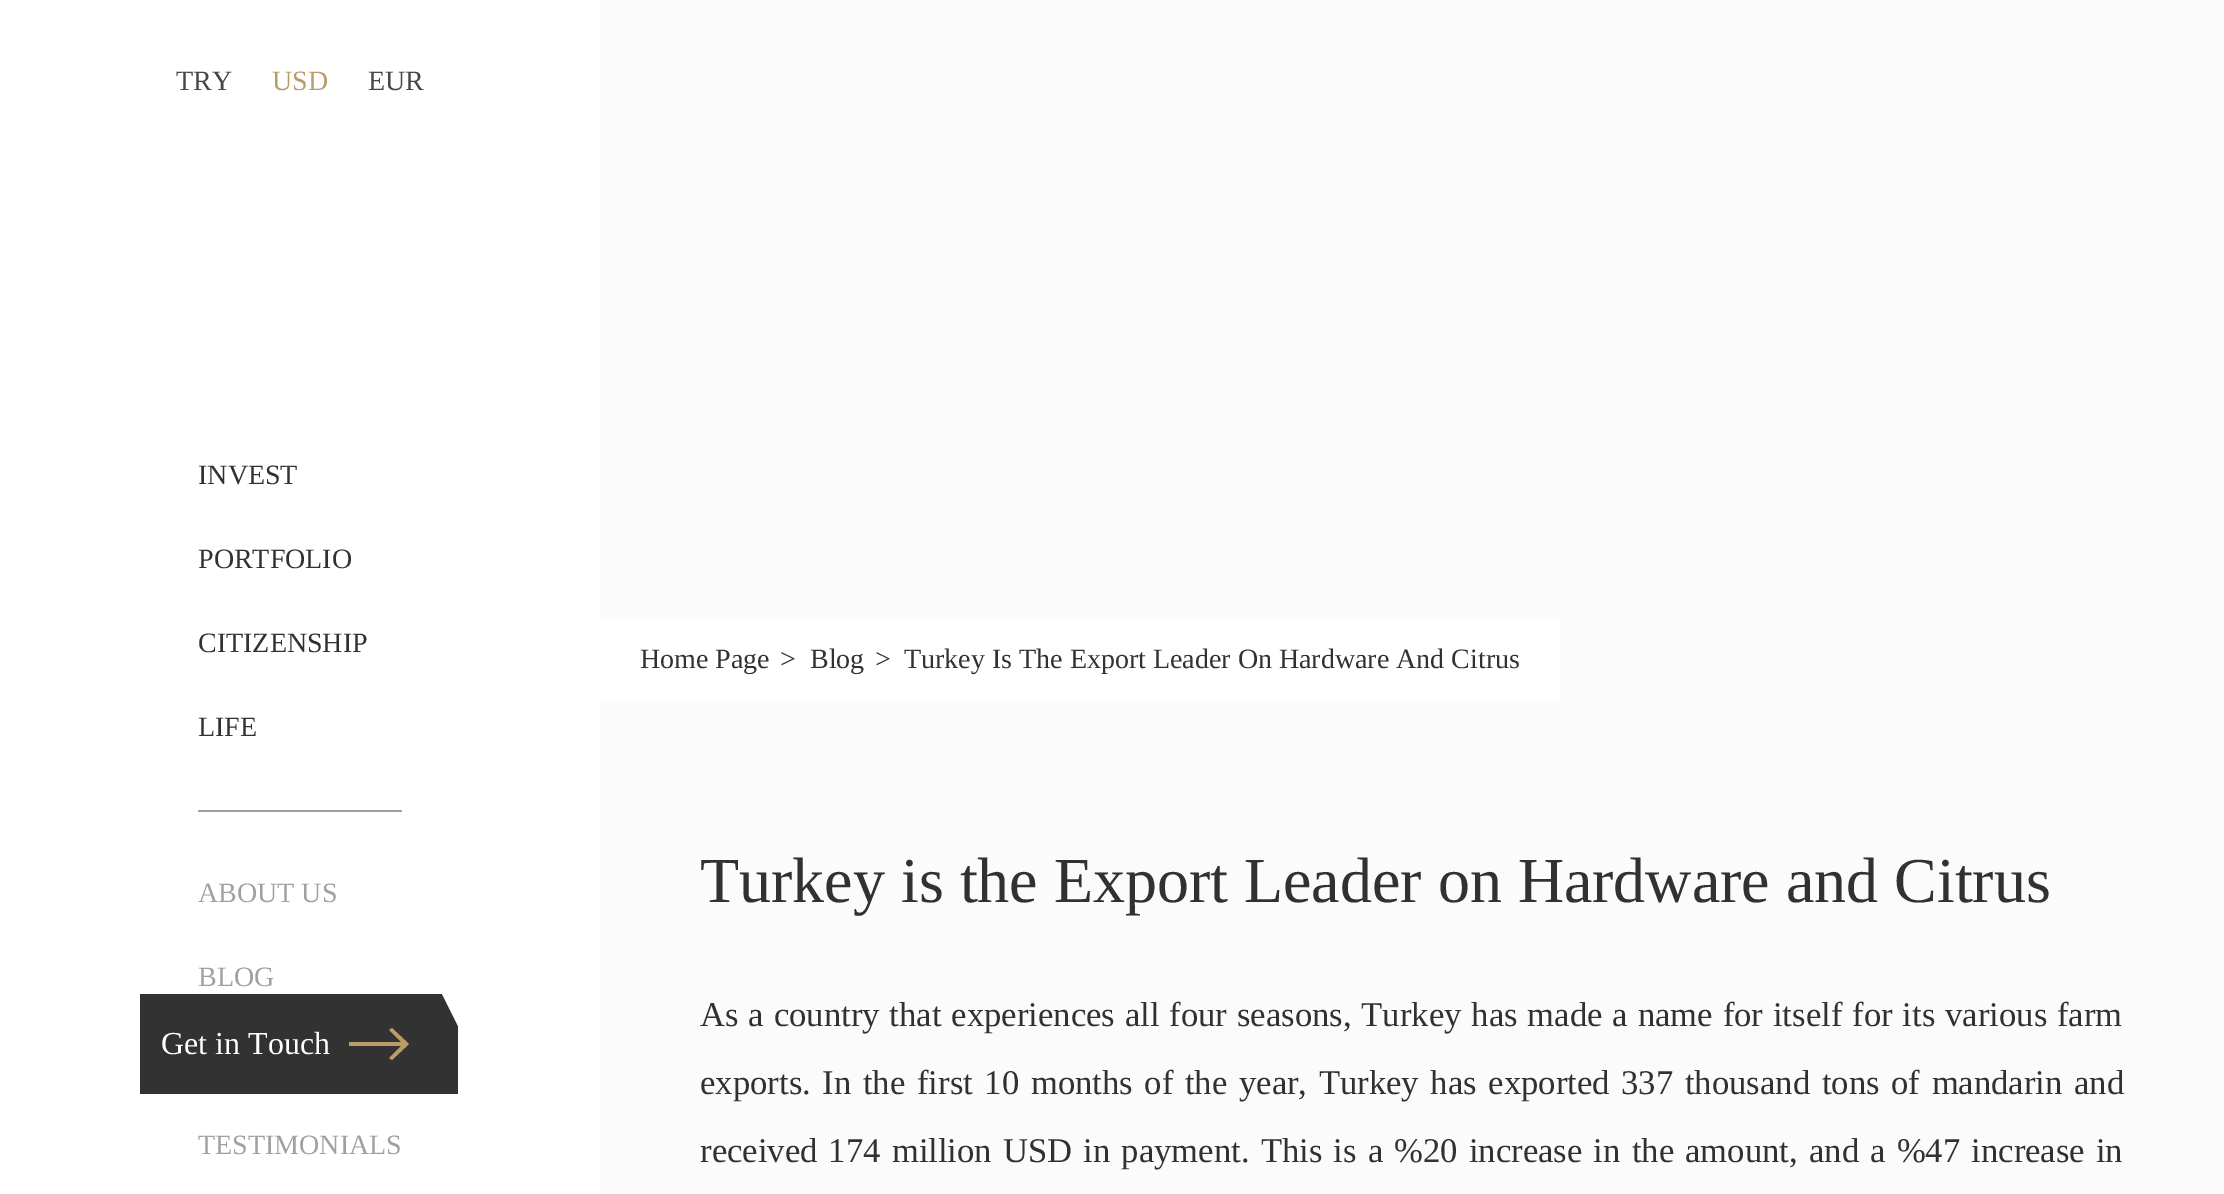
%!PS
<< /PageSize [2224 1194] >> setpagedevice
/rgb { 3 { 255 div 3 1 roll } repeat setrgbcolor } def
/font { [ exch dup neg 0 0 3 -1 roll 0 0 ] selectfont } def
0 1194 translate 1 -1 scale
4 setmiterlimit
255 255 255 rgb
0 0 2224 1194 rectfill
160 160 160 rgb
198 810 204 2 rectfill
50 50 50 rgb
140 994 318 100 rectfill
255 255 255 rgb
461 992 moveto 461 1032 lineto 441 992 lineto closepath fill
185 156 102 rgb
392 1028 moveto 389 1030 lineto 401 1042 lineto 349 1042 lineto 349 1046 lineto 401 1046 lineto 389 1058 lineto 392 1060 lineto 409 1044 lineto closepath fill
251 251 251 rgb
600 0 1624 1194 rectfill
255 255 255 rgb
600 620 960 80 rectfill
/LiberationSerif-Regular 28 font
70 70 70 rgb
176 90 moveto (TRY) show
185 156 102 rgb
272 90 moveto (USD) show
70 70 70 rgb
368 90 moveto (EUR) show
49 49 49 rgb
[
  [(INVEST) 198 484]
  [(PORTFOLIO) 198 568]
  [(CITIZENSHIP) 198 652]
  [(LIFE) 198 736]
] { aload pop moveto show } forall
160 160 160 rgb
[
  [(ABOUT US) 198 902]
  [(BLOG) 198 986]
  [(TESTIMONIALS) 198 1154]
] { aload pop moveto show } forall
/LiberationSerif-Regular 32 font
255 255 255 rgb
161 1054 moveto (Get in Touch) show
/LiberationSerif-Regular 28 font
49 49 49 rgb
[
  [(Home Page) 640 668]
  [(>) 780 668]
  [(Blog) 810 668]
  [(>) 875 668]
  [(Turkey Is The Export Leader On Hardware And Citrus) 904 668]
] { aload pop moveto show } forall
/LiberationSerif-Regular 64 font
700 902 moveto (Turkey is the Export Leader on Hardware and Citrus) show
/LiberationSerif-Regular 34.65 font
700 1026 moveto 1.25 0 32 (As a country that experiences all four seasons, Turkey has made a name for itself for its various farm) widthshow
700 1094 moveto 3 0 32 (exports. In the first 10 months of the year, Turkey has exported 337 thousand tons of mandarin and) widthshow
700 1162 moveto 2.5 0 32 (received 174 million USD in payment. This is a %20 increase in the amount, and a %47 increase in) widthshow
showpage
